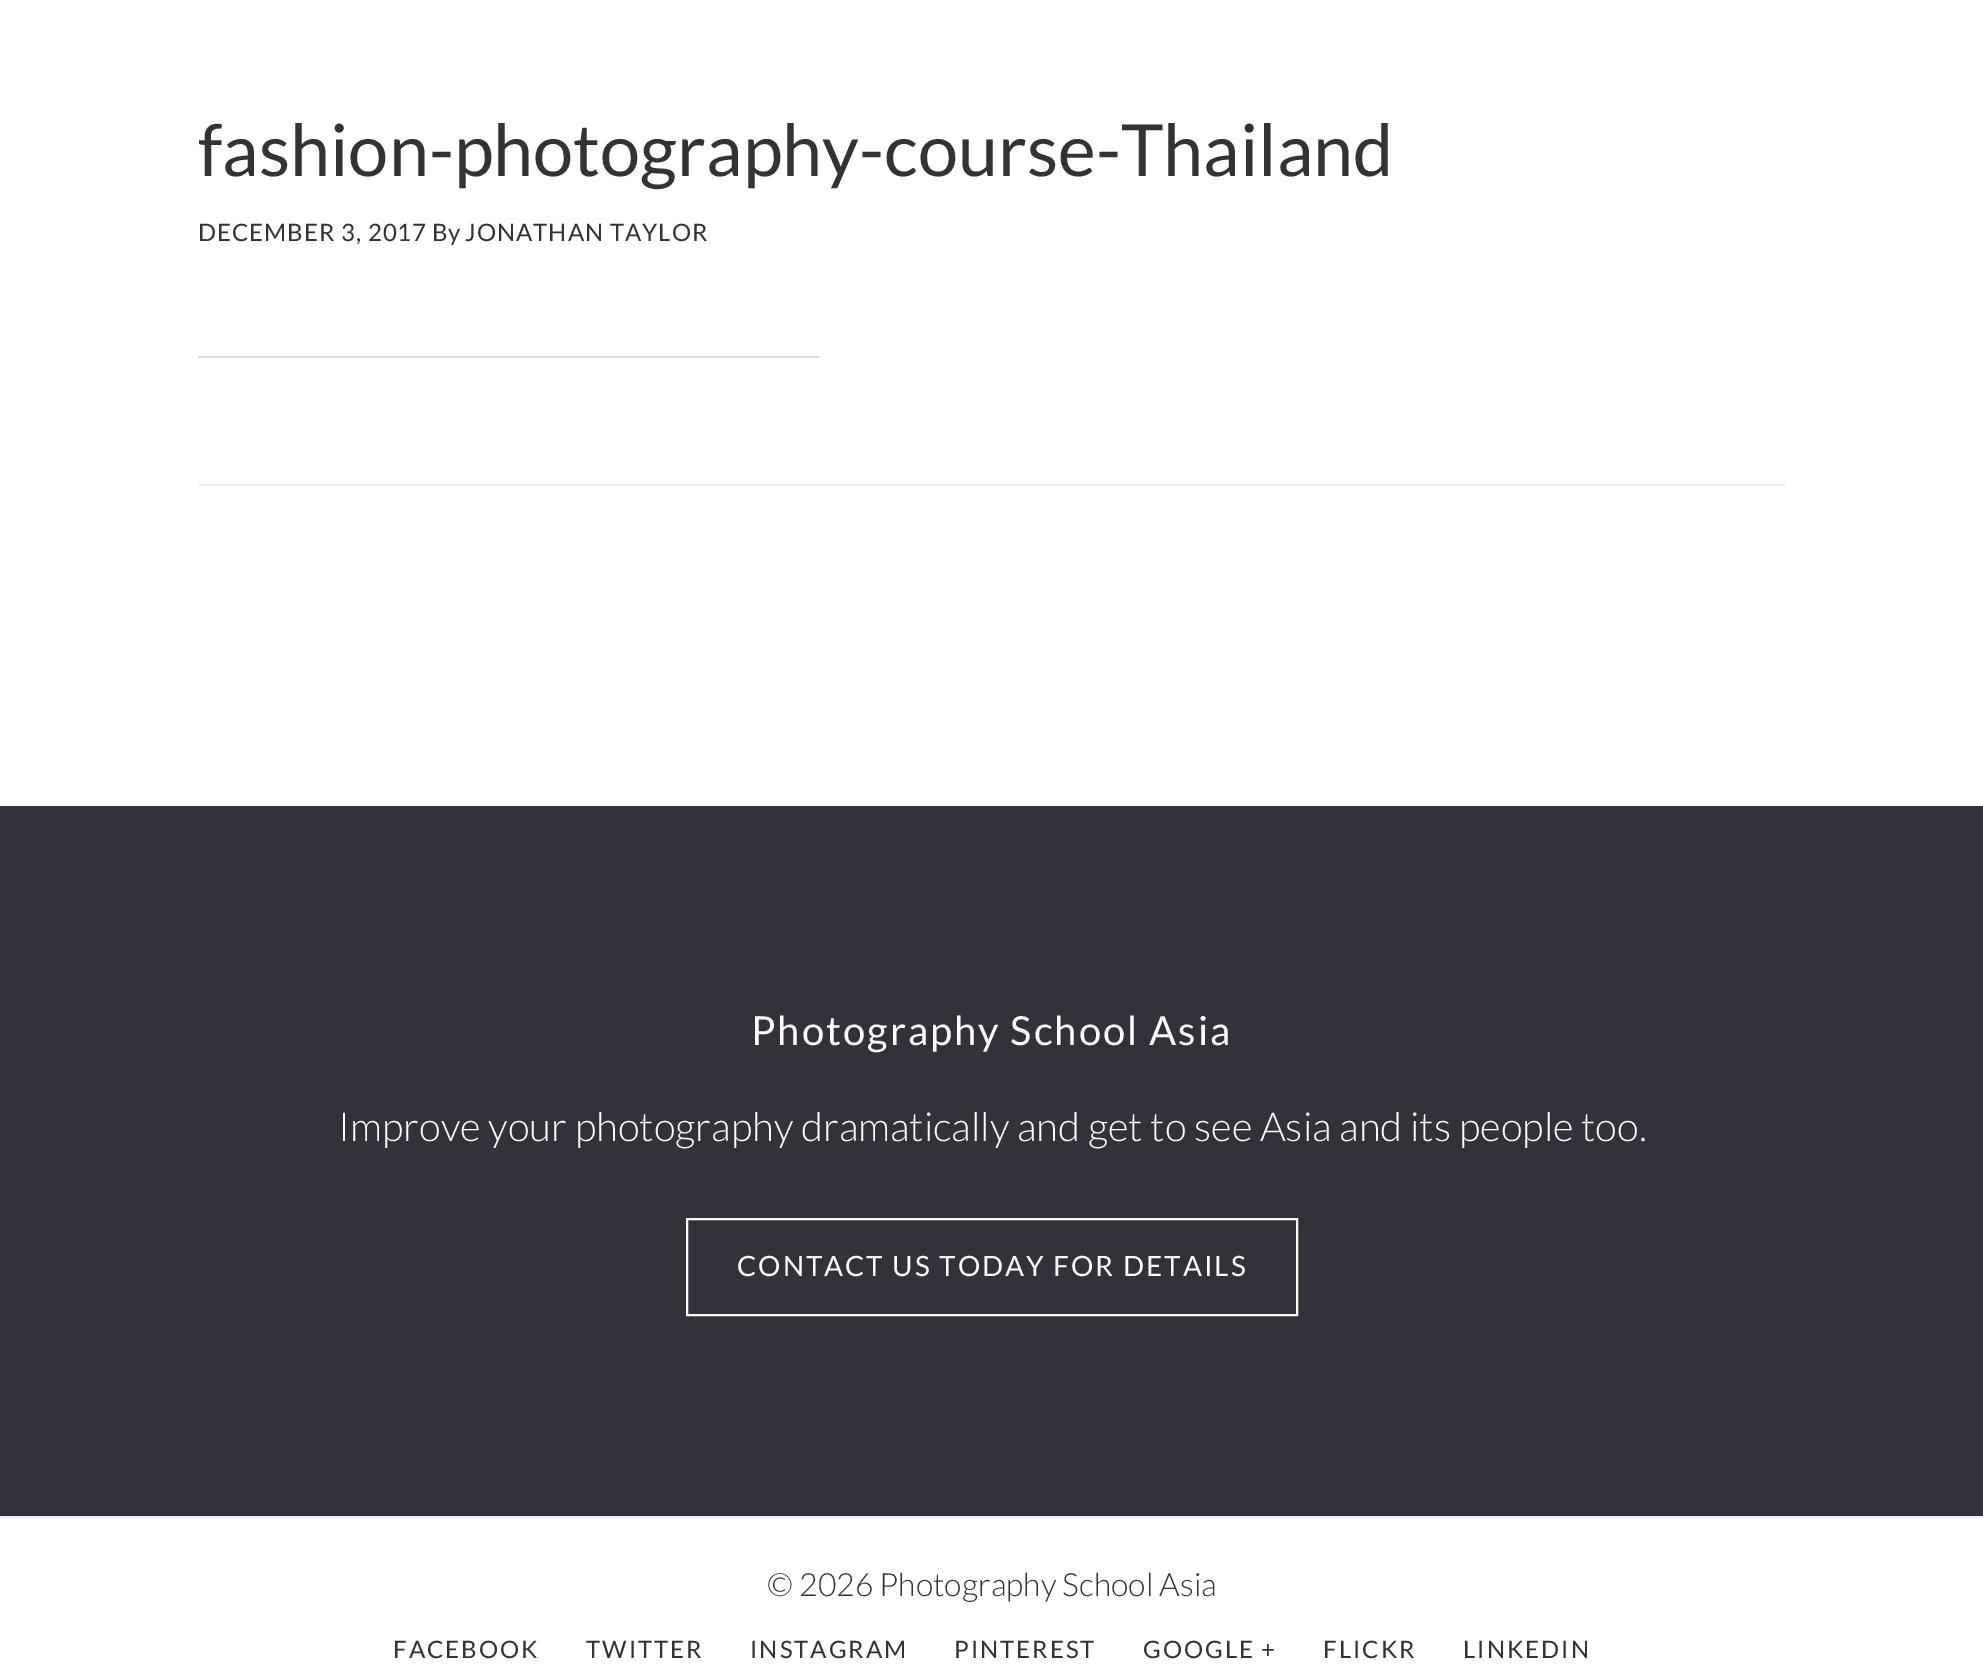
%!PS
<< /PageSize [1983 1677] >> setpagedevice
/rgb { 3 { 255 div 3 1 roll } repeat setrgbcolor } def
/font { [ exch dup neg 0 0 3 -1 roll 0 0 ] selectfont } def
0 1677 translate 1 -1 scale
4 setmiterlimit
255 255 255 rgb
0 0 1983 1677 rectfill
[
  [198 484 1588 2 238 238 238]
  [198 356 622 2 221 221 221]
  [0 806 1983 710 52 49 59]
] { aload pop rgb rectfill } forall
255 255 255 rgb
2 setlinewidth
687 1219 610 96 rectstroke
238 238 238 rgb
0 1516 1983 2 rectfill
/Lato-Regular 72 font
51 51 51 rgb
198 176 moveto (fashion-photography-course-Thailand) show
/Lato-Regular 24 font
198 241 moveto 1 0 (DECEMBER 3, 2017) ashow
432 241 moveto (By) show
465 241 moveto 1 0 (JONATHAN TAYLOR) ashow
/Lato-Regular 40 font
255 255 255 rgb
751 1045 moveto 2 0 (Photography School Asia) ashow
/Lato-Light 40 font
338 1141 moveto (Improve your photography dramatically and get to see Asia and its people too.) show
/Lato-Regular 28 font
737 1276 moveto 2 0 (CONTACT US TODAY FOR DETAILS) ashow
/Lato-Light 32 font
51 51 51 rgb
767 1596 moveto (© 2026 Photography School Asia) show
/Lato-Regular 24 font
393 1658 moveto 2 0 (FACEBOOK) ashow
586 1658 moveto 2 0 (TWITTER) ashow
750 1658 moveto 2 0 (INSTAGRAM) ashow
954 1658 moveto 2 0 (PINTEREST) ashow
1143 1658 moveto 2 0 (GOOGLE +) ashow
1323 1658 moveto 2 0 (FLICKR) ashow
1463 1658 moveto 2 0 (LINKEDIN) ashow
showpage
